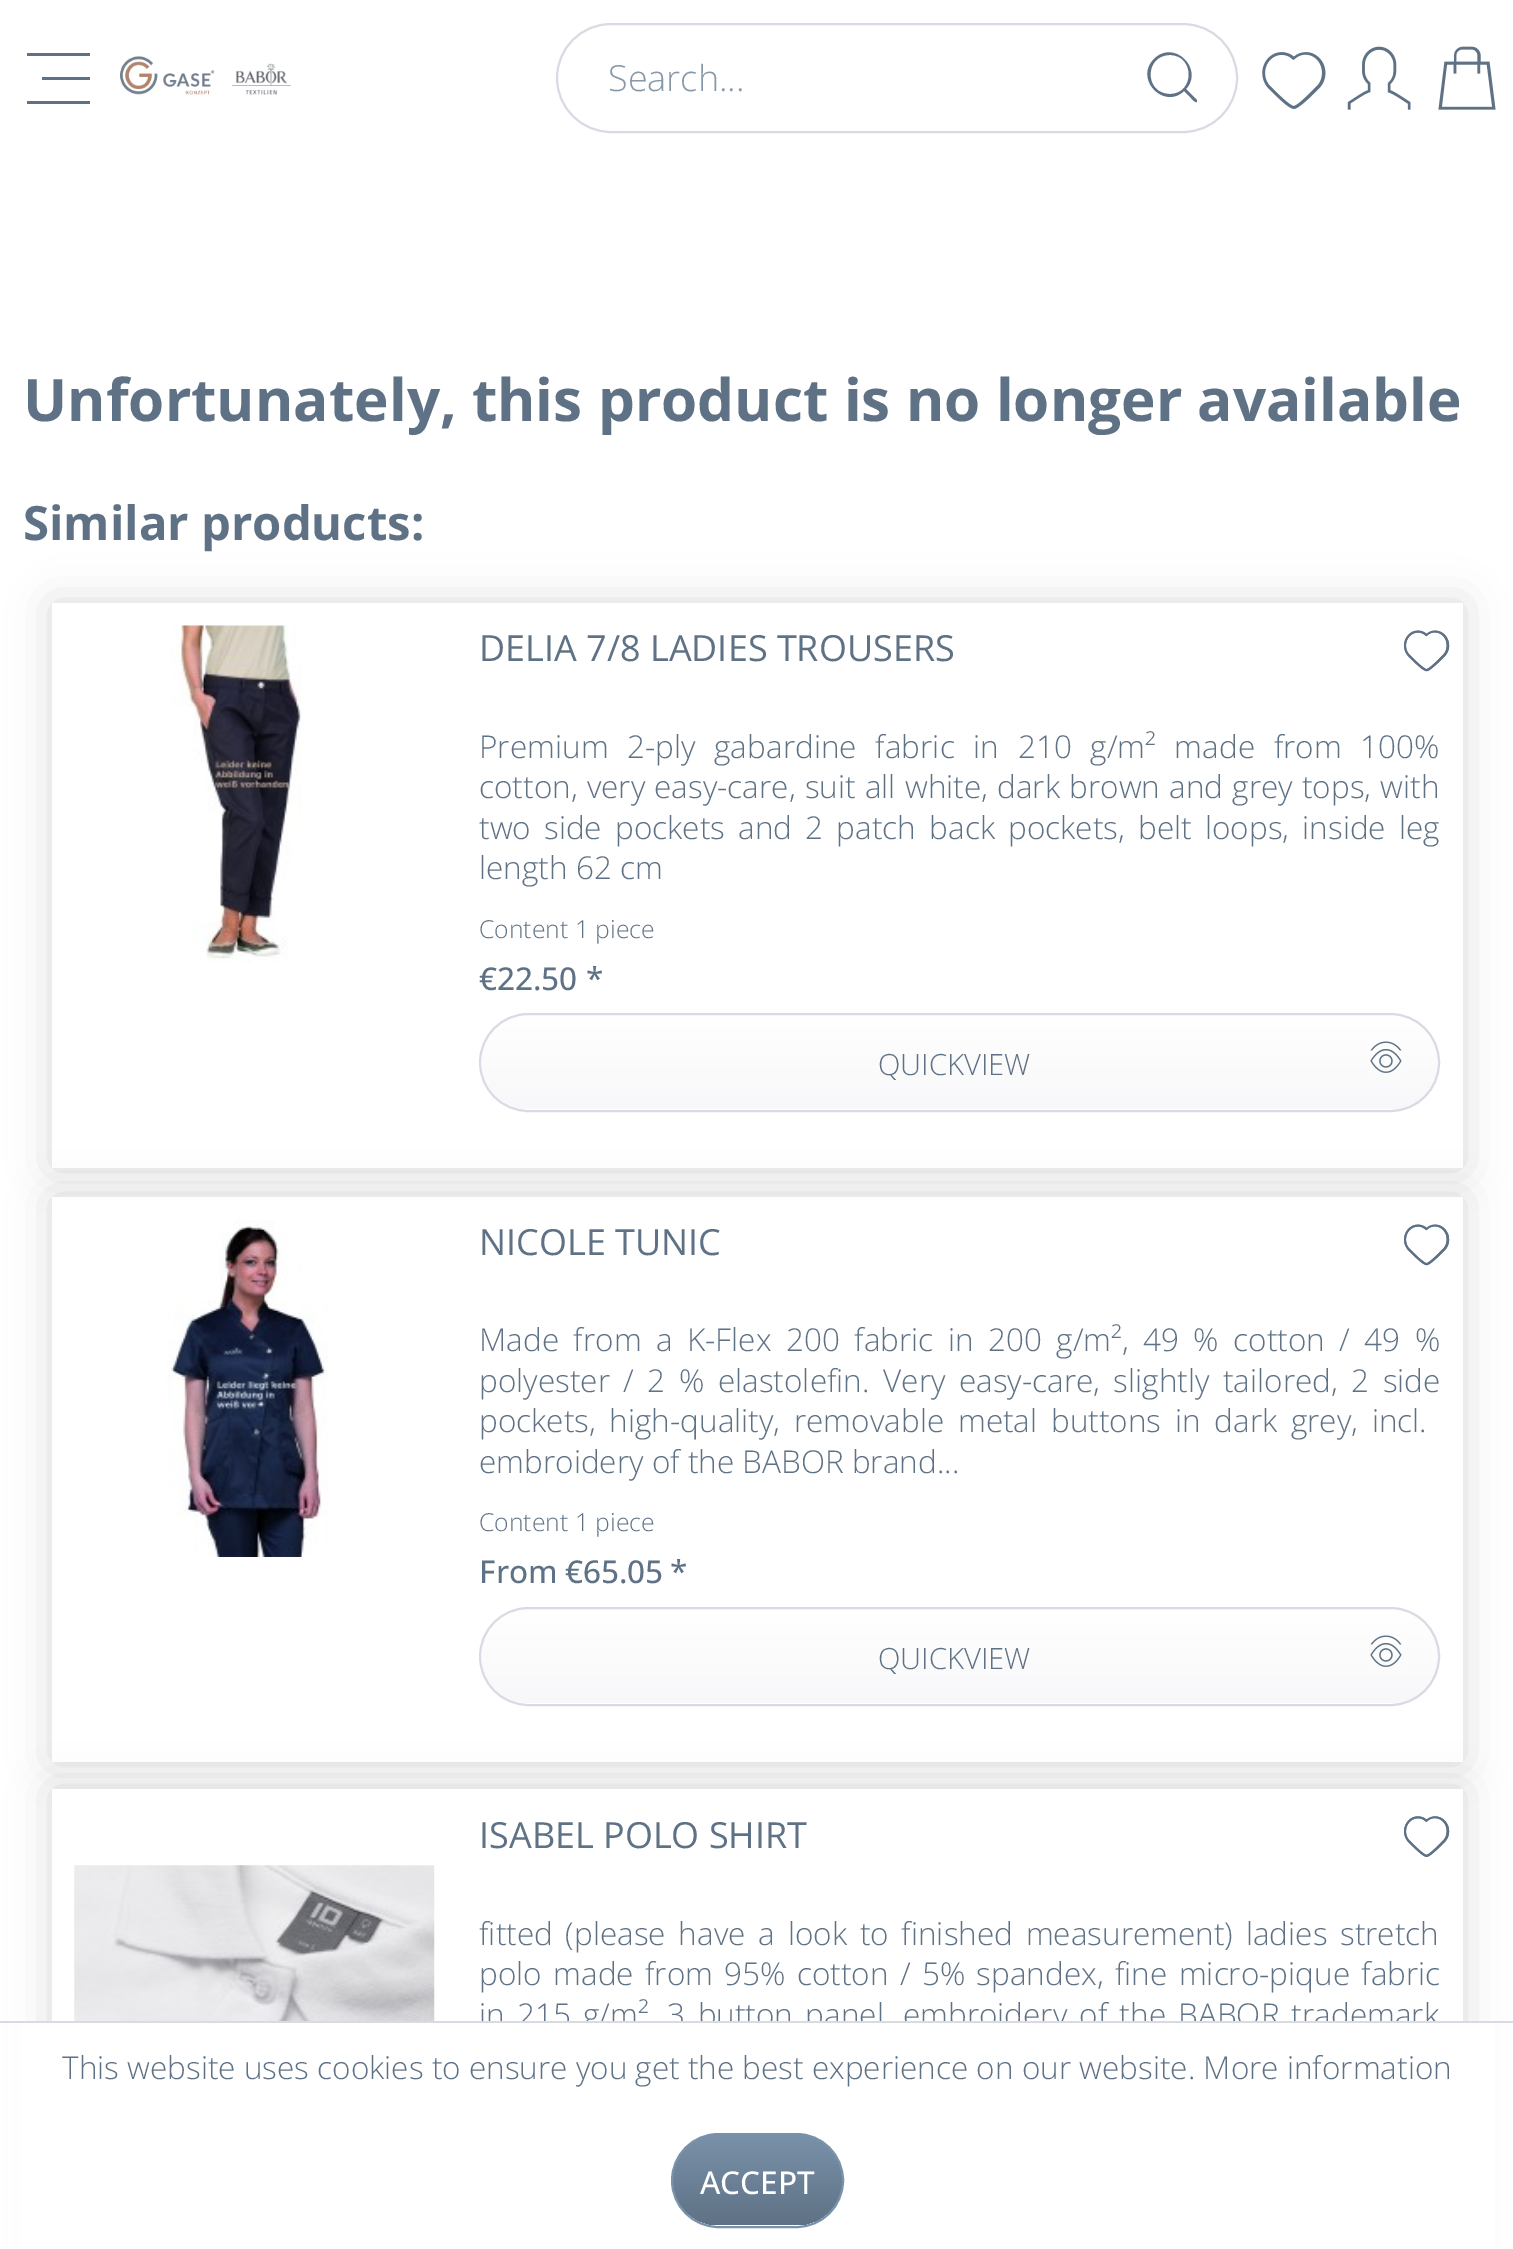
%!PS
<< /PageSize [1513 2249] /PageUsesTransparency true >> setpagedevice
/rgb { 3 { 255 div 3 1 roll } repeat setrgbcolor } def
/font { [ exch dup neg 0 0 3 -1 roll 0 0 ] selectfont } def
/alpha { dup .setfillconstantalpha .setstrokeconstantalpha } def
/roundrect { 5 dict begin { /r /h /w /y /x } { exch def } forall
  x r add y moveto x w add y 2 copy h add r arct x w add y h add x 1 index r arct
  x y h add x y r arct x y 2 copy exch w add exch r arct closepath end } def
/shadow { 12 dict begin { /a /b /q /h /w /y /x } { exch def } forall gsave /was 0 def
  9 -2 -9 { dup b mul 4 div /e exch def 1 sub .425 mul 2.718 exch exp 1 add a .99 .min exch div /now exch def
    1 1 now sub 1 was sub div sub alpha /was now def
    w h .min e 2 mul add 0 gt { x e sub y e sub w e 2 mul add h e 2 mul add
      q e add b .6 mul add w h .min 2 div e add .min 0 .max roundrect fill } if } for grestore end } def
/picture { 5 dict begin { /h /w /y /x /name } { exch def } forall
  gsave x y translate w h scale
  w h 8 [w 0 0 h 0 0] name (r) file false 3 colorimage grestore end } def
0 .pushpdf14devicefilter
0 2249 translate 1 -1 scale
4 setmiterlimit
255 255 255 rgb
0 0 1513 2249 rectfill
95 114 133 rgb
90 53 moveto 27 53 lineto 27 56 lineto 90 56 lineto closepath 90 77 moveto 42 77 lineto 42 80 lineto 90 80 lineto closepath 90 101 moveto 27 101 lineto 27 104 lineto 90 104 lineto closepath fill
(img/1.rgb) 120 56 171 39 picture
218 218 229 rgb
2 setlinewidth
557 24 680 108 54 roundrect stroke
95 114 133 rgb
1197 100 moveto 1186 89 lineto 1204 69 1174 39 1154 59 curveto 1134 79 1164 110 1184 91 curveto 1191 98 lineto 1192 99 1195 103 1197 102 curveto 1197 101 1197 101 1197 100 curveto closepath 1170 94 moveto 1144 94 1144 55 1170 55 curveto 1195 55 1195 94 1170 94 curveto closepath fill
(img/2.rgb) 1262 52 64 57 picture
(img/3.rgb) 1347 46 64 64 picture
(img/4.rgb) 1438 46 58 64 picture
88 88 88 rgb
52 603 1411 565 0 21.5 0.23 shadow
255 255 255 rgb
52 603 1411 565 rectfill
(img/5.rgb) 1404 630 46 42 picture
(img/6.rgb) 1404 630 46 42 picture
(img/7.rgb) 171 625 131 338 picture
gsave 482 1015 956 94 47 roundrect clip newpath
<< /ShadingType 2 /ColorSpace /DeviceRGB /Coords [960 1015 960 1109] /Extend [true true] /Function << /FunctionType 2 /Domain [0 1] /C0 [1 1 1] /C1 [0.973 0.973 0.98] /N 1 >> >> shfill grestore
218 218 229 rgb
480 1014 959 97 48.5 roundrect stroke
(img/8.rgb) 1370 1041 32 32 picture
88 88 88 rgb
52 1197 1411 565 0 21.5 0.23 shadow
255 255 255 rgb
52 1197 1411 565 rectfill
(img/5.rgb) 1404 1224 46 42 picture
(img/6.rgb) 1404 1224 46 42 picture
(img/9.rgb) 167 1220 161 337 picture
gsave 482 1609 956 94 47 roundrect clip newpath
<< /ShadingType 2 /ColorSpace /DeviceRGB /Coords [960 1609 960 1703] /Extend [true true] /Function << /FunctionType 2 /Domain [0 1] /C0 [1 1 1] /C1 [0.973 0.973 0.98] /N 1 >> >> shfill grestore
218 218 229 rgb
480 1608 959 97 48.5 roundrect stroke
(img/8.rgb) 1370 1635 32 32 picture
88 88 88 rgb
52 1789 1411 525 0 21.5 0.23 shadow
255 255 255 rgb
52 1789 1411 232 rectfill
(img/10.rgb) 1404 1816 46 41 picture
(img/11.rgb) 1404 1816 46 41 picture
(img/12.rgb) 74 1865 361 156 picture
/OpenSans-Light 36 font
135 152 169 rgb
608 91 moveto (Search...) show
/OpenSans-Bold 58.5 font
95 114 133 rgb
23 421 moveto (Unfortunately, this product is no longer available) show
/OpenSans-Bold 47.25 font
23 540 moveto (Similar products:) show
/OpenSans-Regular 36 font
479 661 moveto (DELIA 7/8 LADIES TROUSERS) show
/OpenSans-Light 31.5 font
479 758 moveto 10.5 0 32 (Premium 2-ply gabardine fabric in 210 g/m² made from 100%) widthshow
479 798 moveto 1 0 32 (cotton, very easy-care, suit all white, dark brown and grey tops, with) widthshow
479 839 moveto 5 0 32 (two side pockets and 2 patch back pockets, belt loops, inside leg) widthshow
479 879 moveto (length 62 cm) show
/OpenSans-Light 24.75 font
479 938 moveto (Content 1 piece) show
/OpenSans-Medium 31.5 font
479 990 moveto (€22.50 *) show
/OpenSans-Light 29.25 font
878 1075 moveto (QUICKVIEW) show
/OpenSans-Regular 36 font
479 1255 moveto (NICOLE TUNIC) show
/OpenSans-Light 31.5 font
479 1351 moveto 6.25 0 32 (Made from a K-Flex 200 fabric in 200 g/m², 49 % cotton / 49 %) widthshow
479 1392 moveto 5.25 0 32 (polyester / 2 % elastolefin. Very easy-care, slightly tailored, 2 side) widthshow
479 1432 moveto 5.5 0 32 (pockets, high-quality, removable metal buttons in dark grey, incl.) widthshow
479 1473 moveto (embroidery of the BABOR brand...) show
/OpenSans-Light 24.75 font
479 1531 moveto (Content 1 piece) show
/OpenSans-Medium 31.5 font
479 1583 moveto -1 0 32 (From €65.05 *) widthshow
/OpenSans-Light 29.25 font
878 1669 moveto (QUICKVIEW) show
/OpenSans-Regular 36 font
479 1848 moveto (ISABEL POLO SHIRT) show
/OpenSans-Light 31.5 font
479 1945 moveto 4.5 0 32 (fitted \(please have a look to finished measurement\) ladies stretch) widthshow
479 1985 moveto 3.1 0 32 (polo made from 95% cotton / 5% spandex, fine micro-pique fabric) widthshow
479 2026 moveto 4 0 32 (in 215 g/m², 3 button panel, embroidery of the BABOR trademark) widthshow
255 255 255 rgb
20 2023 1475 226 rectfill
218 218 229 rgb
0 2021 1513 2 rectfill
95 114 133 rgb
62 2079 moveto (This website uses cookies to ensure you get the best experience on our website. More information) show
gsave 673 2135 169 90 45 roundrect clip newpath
<< /ShadingType 2 /ColorSpace /DeviceRGB /Coords [757 2135 757 2225] /Extend [true true] /Function << /FunctionType 2 /Domain [0 1] /C0 [0.475 0.569 0.663] /C1 [0.373 0.447 0.522] /N 1 >> >> shfill grestore
121 145 169 rgb
672 2134 171 93 46.5 roundrect stroke
/OpenSans-Medium 31.5 font
255 255 255 rgb
700 2194 moveto (ACCEPT) show
.poppdf14devicefilter showpage
